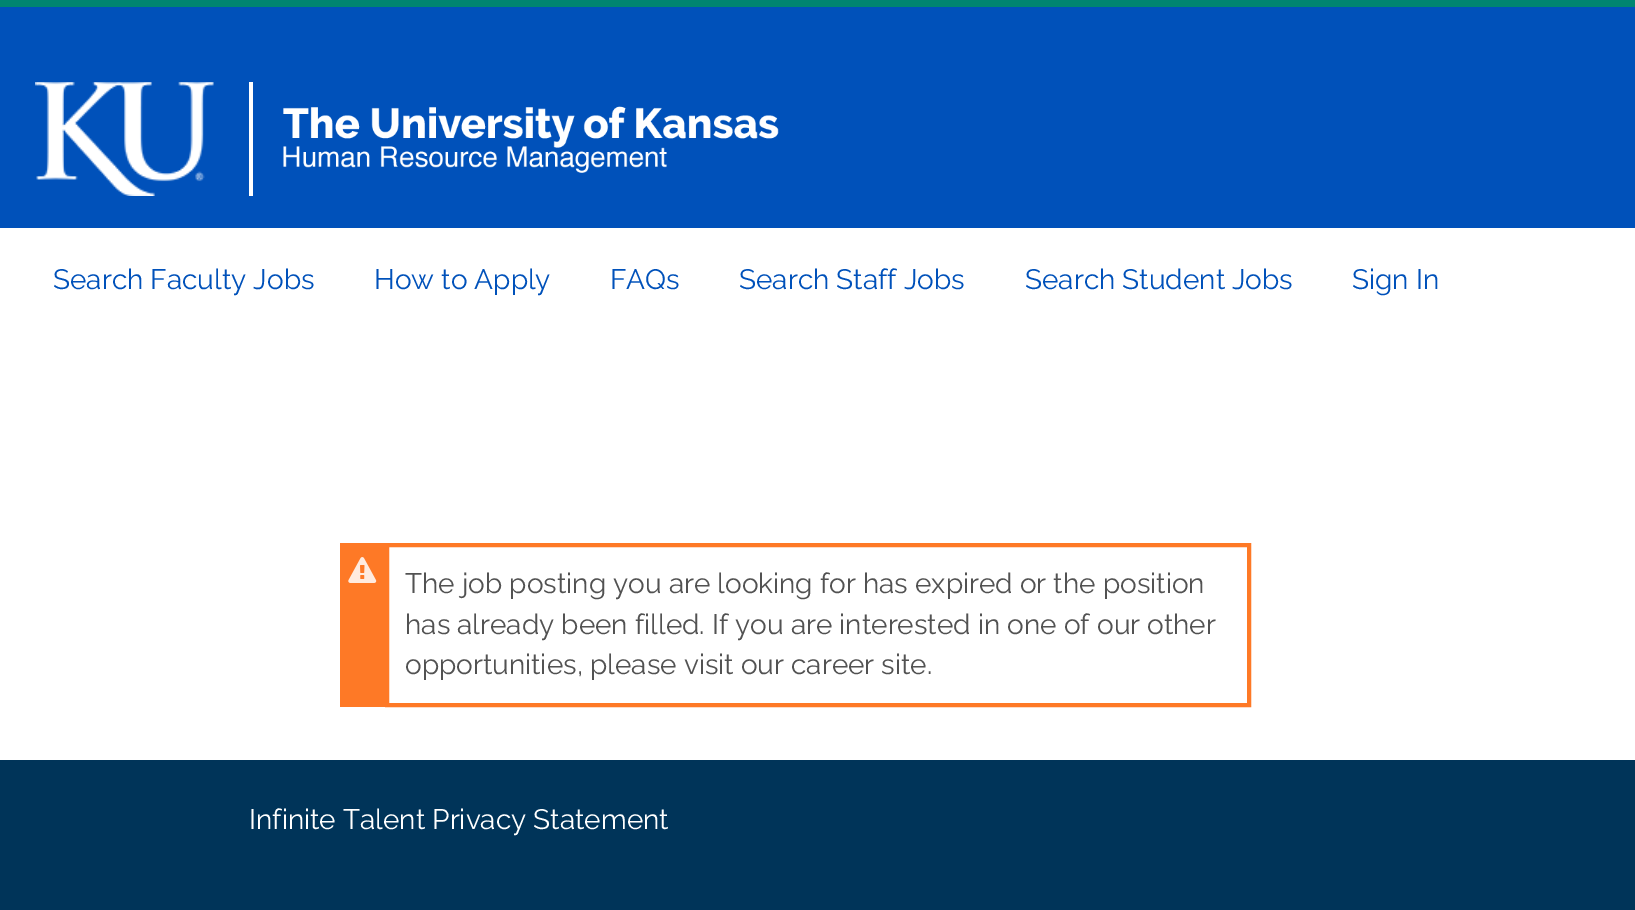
%!PS
<< /PageSize [1635 910] >> setpagedevice
/rgb { 3 { 255 div 3 1 roll } repeat setrgbcolor } def
/font { [ exch dup neg 0 0 3 -1 roll 0 0 ] selectfont } def
/picture { 5 dict begin { /h /w /y /x /name } { exch def } forall
  gsave x y translate w h scale
  w h 8 [w 0 0 h 0 0] name (r) file false 3 colorimage grestore end } def
0 910 translate 1 -1 scale
4 setmiterlimit
255 255 255 rgb
0 0 1635 910 rectfill
[
  [0 0 1635 7 0 133 113]
  [0 7 1635 221 0 81 186]
  [249 82 4 114 255 255 255]
] { aload pop rgb rectfill } forall
(img/1.rgb) 35 82 179 114 picture
(img/2.rgb) 283 106 496 67 picture
254 121 38 rgb
340 543 45 164 rectfill
(img/3.rgb) 348 557 29 26 picture
4 setlinewidth
387 545 862 160 rectstroke
0 52 89 rgb
0 760 1635 150 rectfill
/Raleway-Regular 28 font
0 81 186 rgb
[
  [(Search Faculty Jobs) 53 289]
  [(How to Apply) 374 289]
  [(FAQs) 610 289]
  [(Search Staff Jobs) 739 289]
  [(Search Student Jobs) 1025 289]
  [(Sign In) 1352 289]
] { aload pop moveto show } forall
82 82 82 rgb
[
  [(The job posting you are looking for has expired or the position) 405 593]
  [(has already been filled. If you are interested in one of our other) 405 634]
  [(opportunities, please visit our career site.) 405 674]
] { aload pop moveto show } forall
255 255 255 rgb
249 829 moveto (Infinite Talent Privacy Statement) show
showpage
